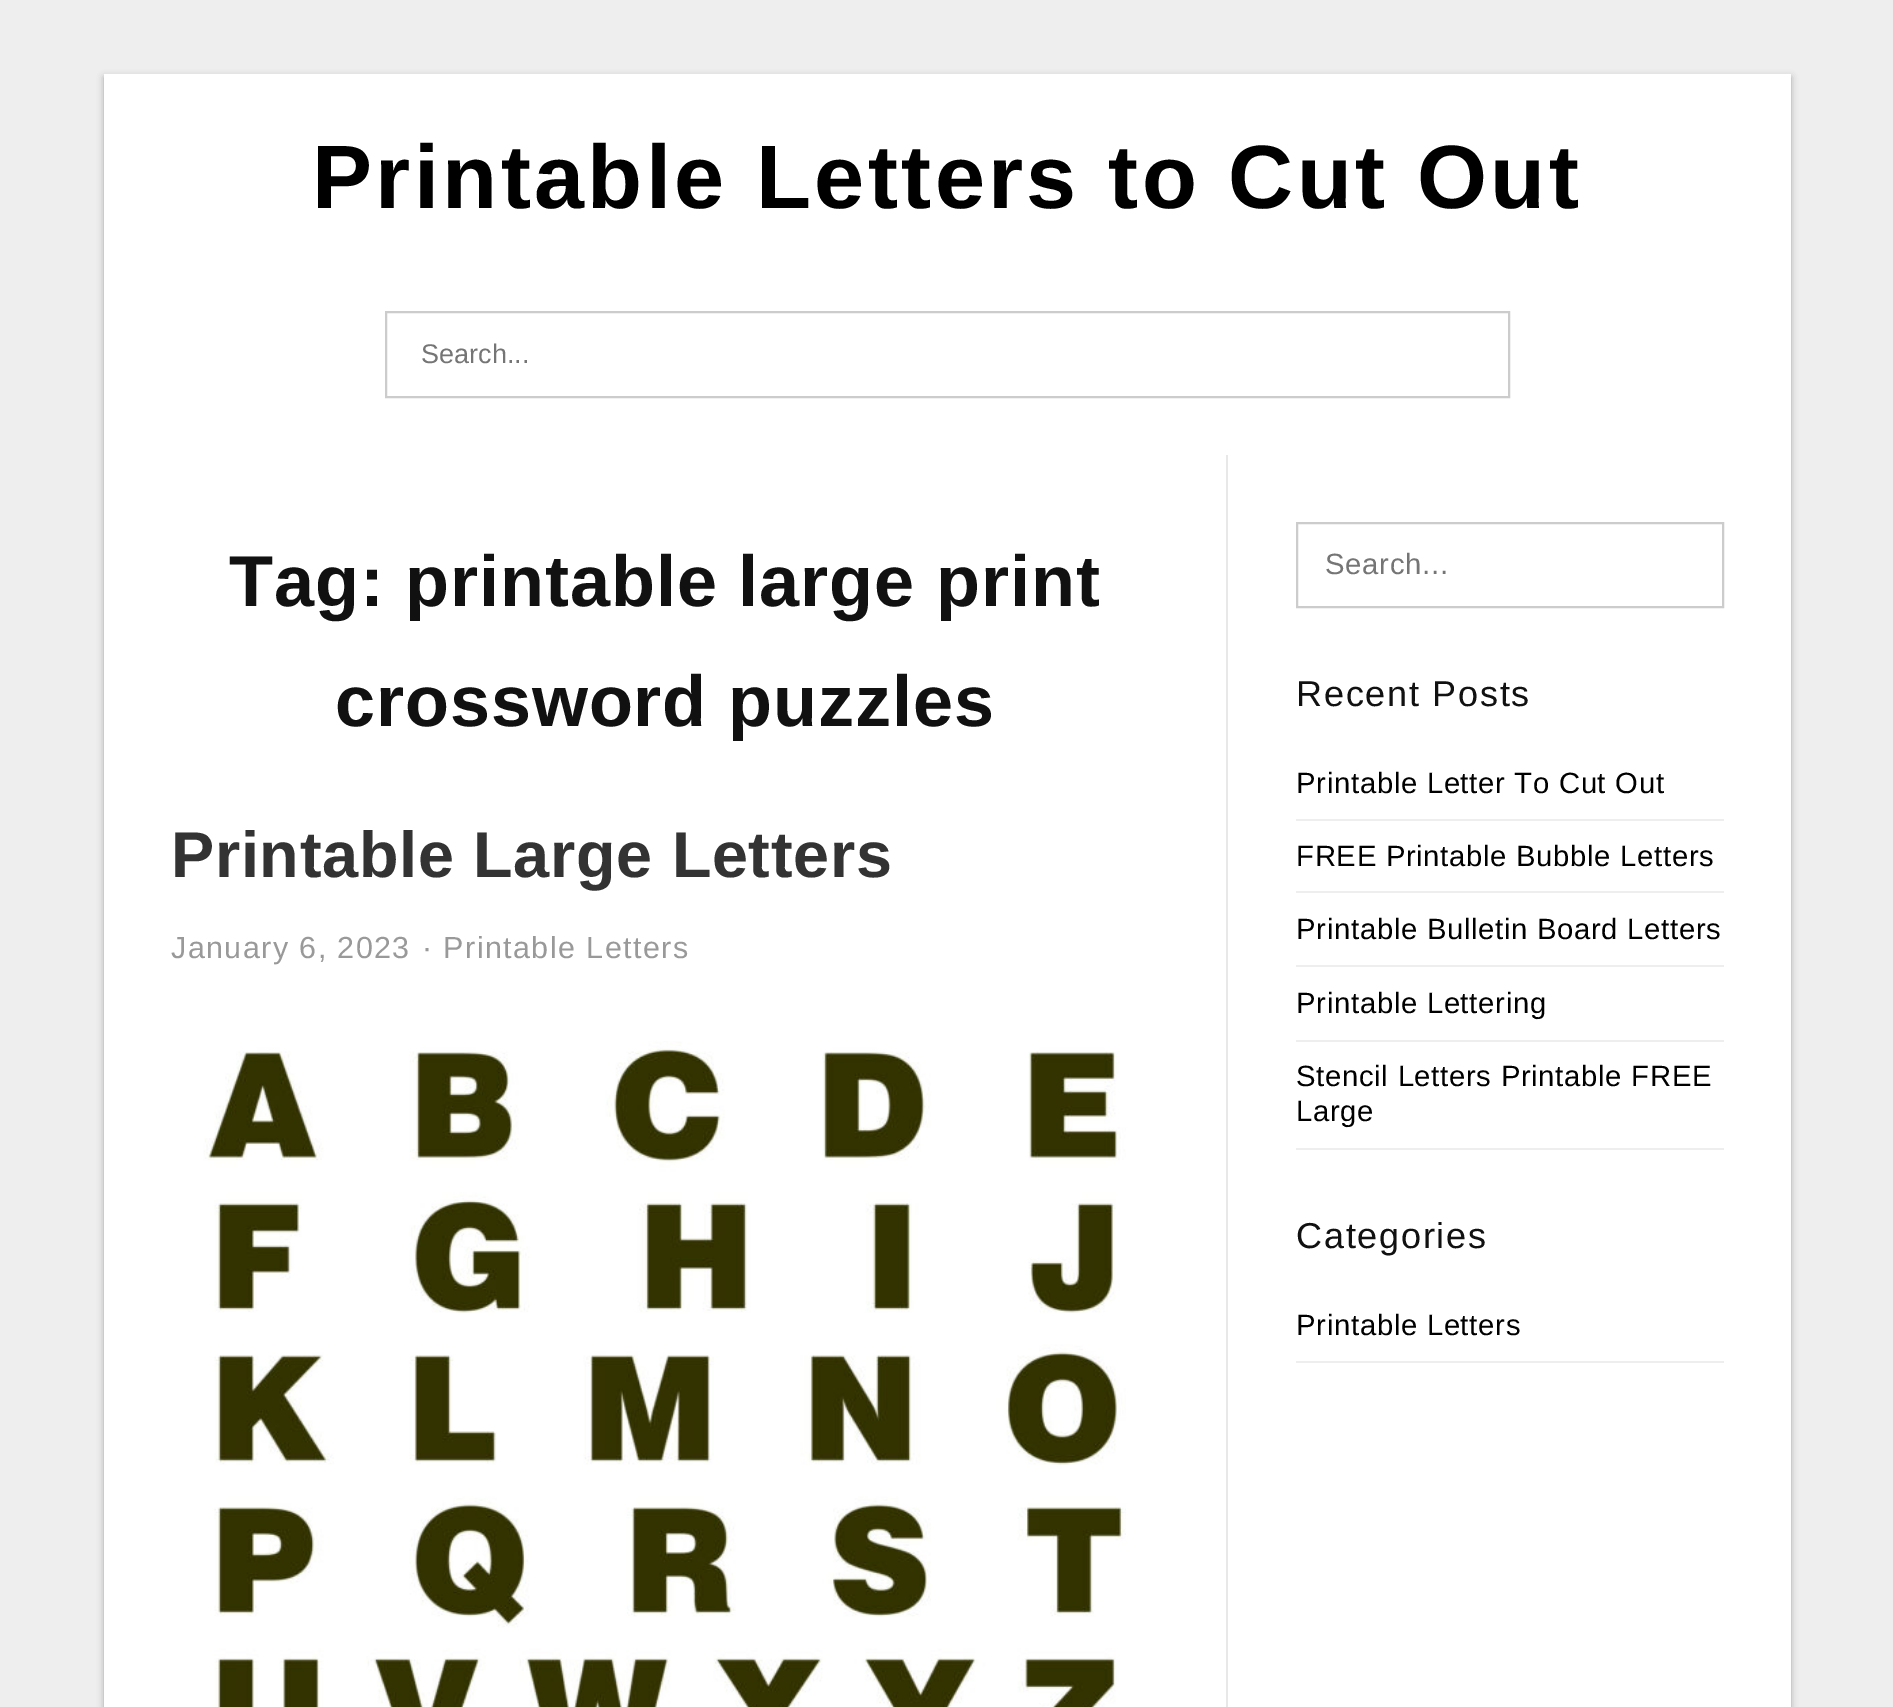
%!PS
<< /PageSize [1893 1707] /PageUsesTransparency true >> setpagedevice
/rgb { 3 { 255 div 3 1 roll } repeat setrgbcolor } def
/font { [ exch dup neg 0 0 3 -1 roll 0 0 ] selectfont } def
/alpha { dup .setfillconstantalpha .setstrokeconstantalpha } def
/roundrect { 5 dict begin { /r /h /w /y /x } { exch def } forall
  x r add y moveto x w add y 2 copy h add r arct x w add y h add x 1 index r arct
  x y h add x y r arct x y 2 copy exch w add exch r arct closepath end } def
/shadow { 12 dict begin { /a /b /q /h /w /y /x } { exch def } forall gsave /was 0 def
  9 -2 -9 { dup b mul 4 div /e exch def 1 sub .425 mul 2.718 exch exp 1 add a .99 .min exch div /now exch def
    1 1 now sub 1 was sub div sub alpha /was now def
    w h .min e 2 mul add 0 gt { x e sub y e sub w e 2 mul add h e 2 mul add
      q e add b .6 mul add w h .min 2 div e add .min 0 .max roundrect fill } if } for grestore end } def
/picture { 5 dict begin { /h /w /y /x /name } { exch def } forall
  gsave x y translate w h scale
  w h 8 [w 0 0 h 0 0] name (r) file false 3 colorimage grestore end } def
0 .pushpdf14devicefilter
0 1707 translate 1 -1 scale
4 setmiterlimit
238 238 238 rgb
0 0 1893 1707 rectfill
0 0 0 rgb
104 77 1687 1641 0 3.5 0.3 shadow
255 255 255 rgb
104 74 1687 1633 rectfill
204 204 204 rgb
2 setlinewidth
386 312 1123 85 rectstroke
232 232 232 rgb
1226 455 2 1252 rectfill
(img/1.rgb) 203 1041 923 666 picture
204 204 204 rgb
1297 523 426 84 rectstroke
[
  [1296 819 428 2 238 238 238]
  [1296 891 428 2 238 238 238]
  [1296 965 428 2 238 238 238]
  [1296 1040 428 2 238 238 238]
  [1296 1148 428 2 238 238 238]
  [1296 1361 428 2 238 238 238]
] { aload pop rgb rectfill } forall
/LiberationSans-Bold 90 font
0 0 0 rgb
312 208 moveto 3.4 0 (Printable Letters to Cut Out) ashow
/LiberationSans-Regular 27 font
117 117 117 rgb
421 363 moveto (Search...) show
/LiberationSans-Bold 72 font
17 17 17 rgb
229 606 moveto 0.9 0 (Tag: printable large print) ashow
335 726 moveto 0.9 0 (crossword puzzles) ashow
/LiberationSans-Bold 64.75 font
51 51 51 rgb
171 877 moveto 0.7 0 (Printable Large Letters) ashow
/LiberationSans-Regular 30.5 font
153 153 153 rgb
171 958 moveto 1.4 0 (January 6, 2023) ashow
422 958 moveto 1.4 0 (· Printable Letters) ashow
/LiberationSans-Regular 29.25 font
117 117 117 rgb
1325 574 moveto 0.7 0 (Search...) ashow
/LiberationSans-Regular 36 font
17 17 17 rgb
1296 706 moveto 1.75 0 (Recent Posts) ashow
/LiberationSans-Regular 29.25 font
0 0 0 rgb
1296 793 moveto 0.7 0 (Printable Letter To Cut Out) ashow
1296 866 moveto 0.7 0 (FREE Printable Bubble Letters) ashow
1296 939 moveto 0.7 0 (Printable Bulletin Board Letters) ashow
1296 1013 moveto 0.7 0 (Printable Lettering) ashow
1296 1086 moveto 0.7 0 (Stencil Letters Printable FREE) ashow
1296 1121 moveto 0.7 0 (Large) ashow
/LiberationSans-Regular 36 font
17 17 17 rgb
1296 1248 moveto 1.75 0 (Categories) ashow
/LiberationSans-Regular 29.25 font
0 0 0 rgb
1296 1335 moveto 0.7 0 (Printable Letters) ashow
.poppdf14devicefilter showpage
